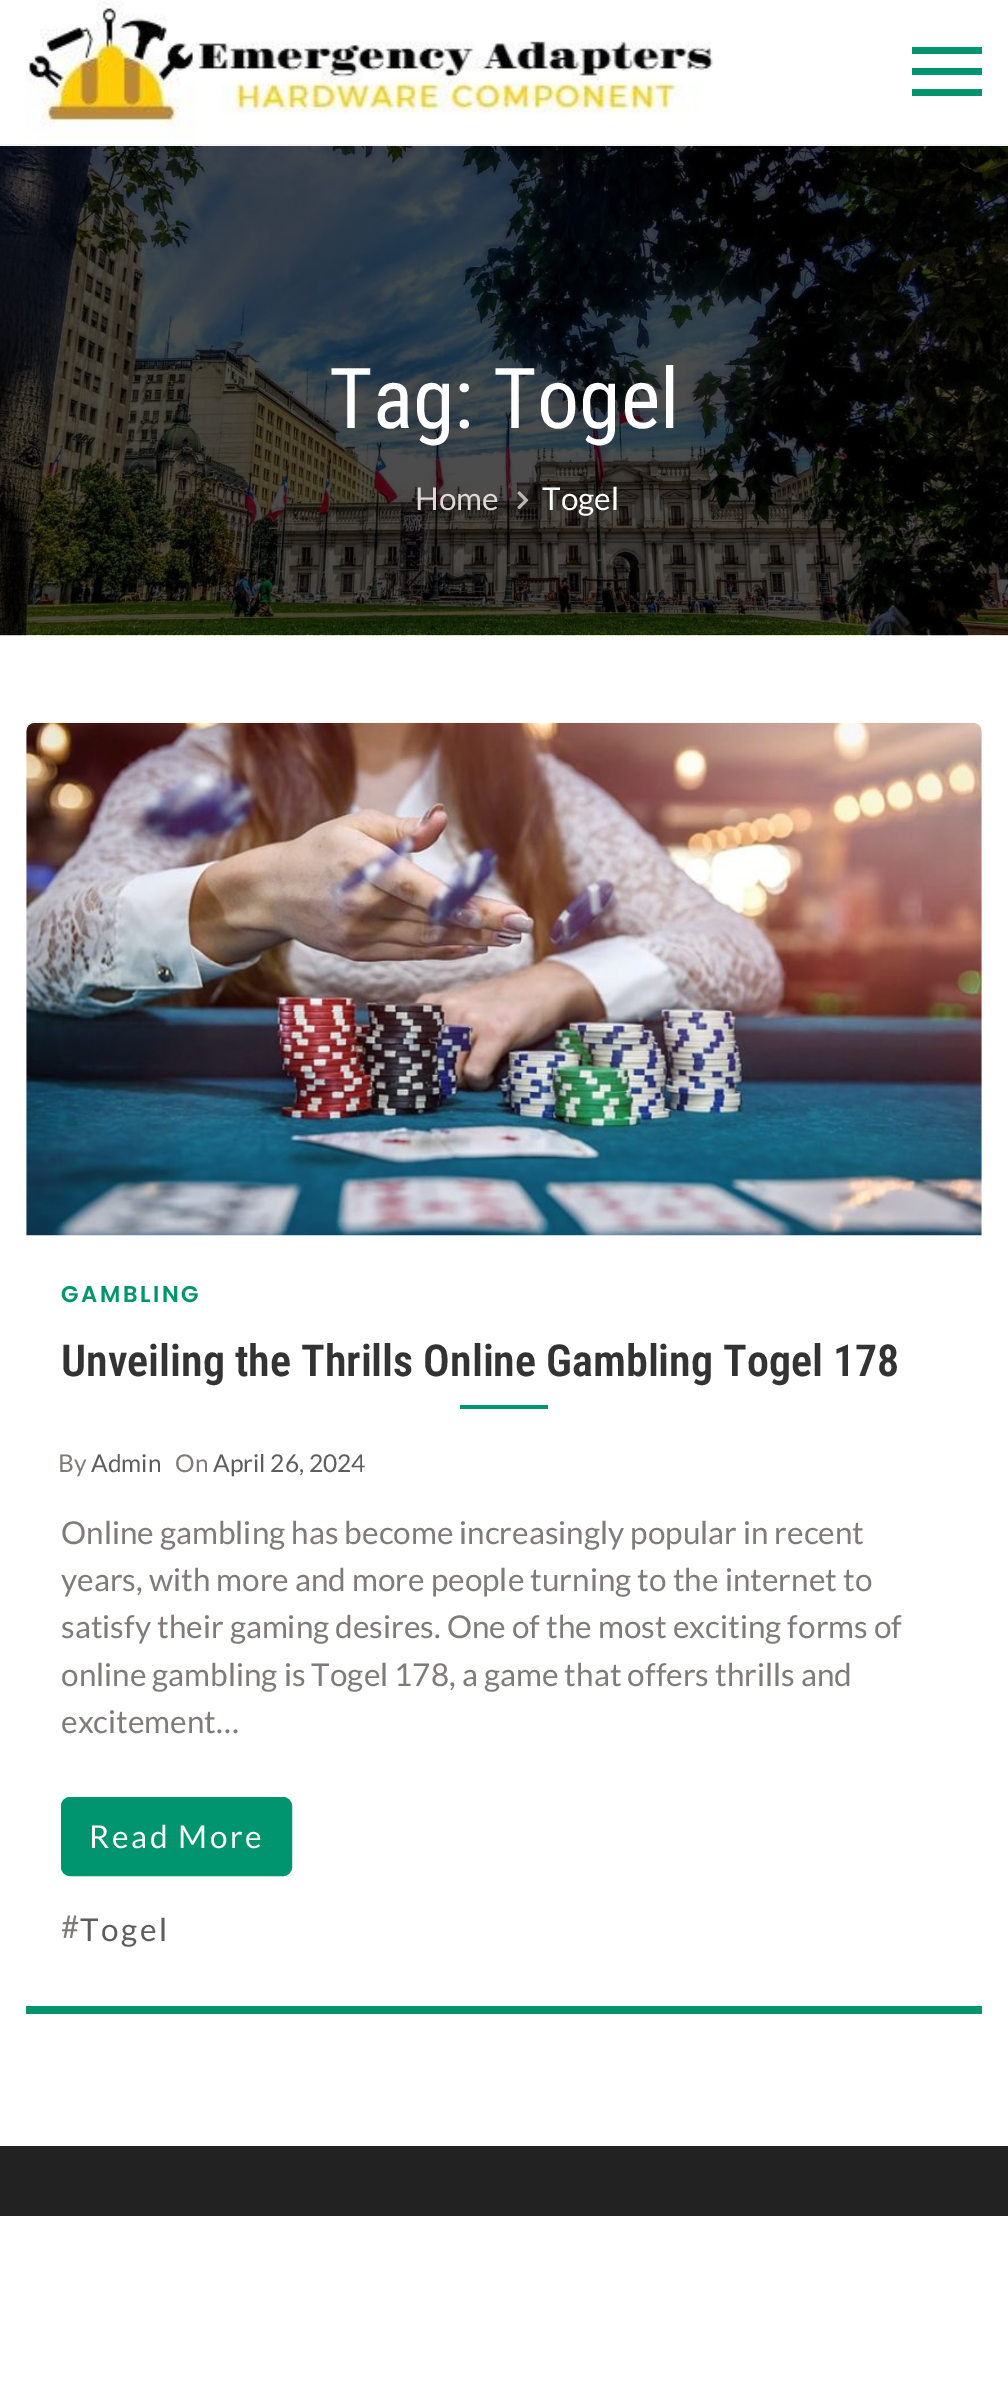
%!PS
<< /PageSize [1008 2389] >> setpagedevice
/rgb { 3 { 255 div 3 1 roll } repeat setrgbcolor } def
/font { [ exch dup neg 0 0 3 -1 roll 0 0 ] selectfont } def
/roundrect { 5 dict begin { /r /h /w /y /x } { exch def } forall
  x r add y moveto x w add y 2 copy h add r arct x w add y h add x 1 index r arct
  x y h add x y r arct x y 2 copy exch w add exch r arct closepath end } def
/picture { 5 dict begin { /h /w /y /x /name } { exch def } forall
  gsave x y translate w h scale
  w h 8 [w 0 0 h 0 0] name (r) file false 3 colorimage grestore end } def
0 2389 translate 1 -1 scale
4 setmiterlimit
255 255 255 rgb
0 0 1008 2389 rectfill
245 245 245 rgb
0 144 1008 2 rectfill
(img/1.rgb) 26 0 687 141 picture
[
  [912 47 70 7 0 149 111]
  [912 68 70 7 0 149 111]
  [912 89 70 7 0 149 111]
] { aload pop rgb rectfill } forall
(img/2.rgb) 0 146 1008 490 picture
(img/3.rgb) 517 491 12 19 picture
26 2006 956 8 rectfill
(img/4.rgb) 26 722 956 514 picture
460 1405 88 4 rectfill
62 1798 229 77 8 roundrect gsave fill grestore
2 setlinewidth
stroke
34 34 34 rgb
0 2146 1008 70 rectfill
/RobotoCondensed-Regular 84 font
255 255 255 rgb
329 428 moveto (Tag: Togel) show
/Lato-Regular 31.5 font
223 216 216 rgb
415 510 moveto (Home) show
255 255 255 rgb
542 510 moveto (Togel) show
/Poppins-SemiBold 22.75 font
0 149 111 rgb
61 1302 moveto 2.6 0 (GAMBLING) ashow
/RobotoCondensed-SemiBold 44.1 font
51 51 51 rgb
61 1376 moveto (Unveiling the Thrills Online Gambling Togel 178) show
/Lato-Regular 24.5 font
128 122 122 rgb
58 1472 moveto (By) show
93 93 93 rgb
91 1472 moveto (Admin) show
128 122 122 rgb
175 1472 moveto (On) show
93 93 93 rgb
213 1472 moveto (April 26, 2024) show
/Lato-Regular 31.5 font
128 122 122 rgb
[
  [(Online gambling has become increasingly popular in recent) 61 1544]
  [(years, with more and more people turning to the internet to) 61 1591]
  [(satisfy their gaming desires. One of the most exciting forms of) 61 1638]
  [(online gambling is Togel 178, a game that offers thrills and) 61 1686]
  [(excitement…) 61 1733]
] { aload pop moveto show } forall
255 255 255 rgb
89 1848 moveto 2.6 0 (Read More) ashow
128 122 122 rgb
61 1938 moveto (#) show
93 93 93 rgb
80 1941 moveto 2.6 0 (Togel) ashow
showpage
